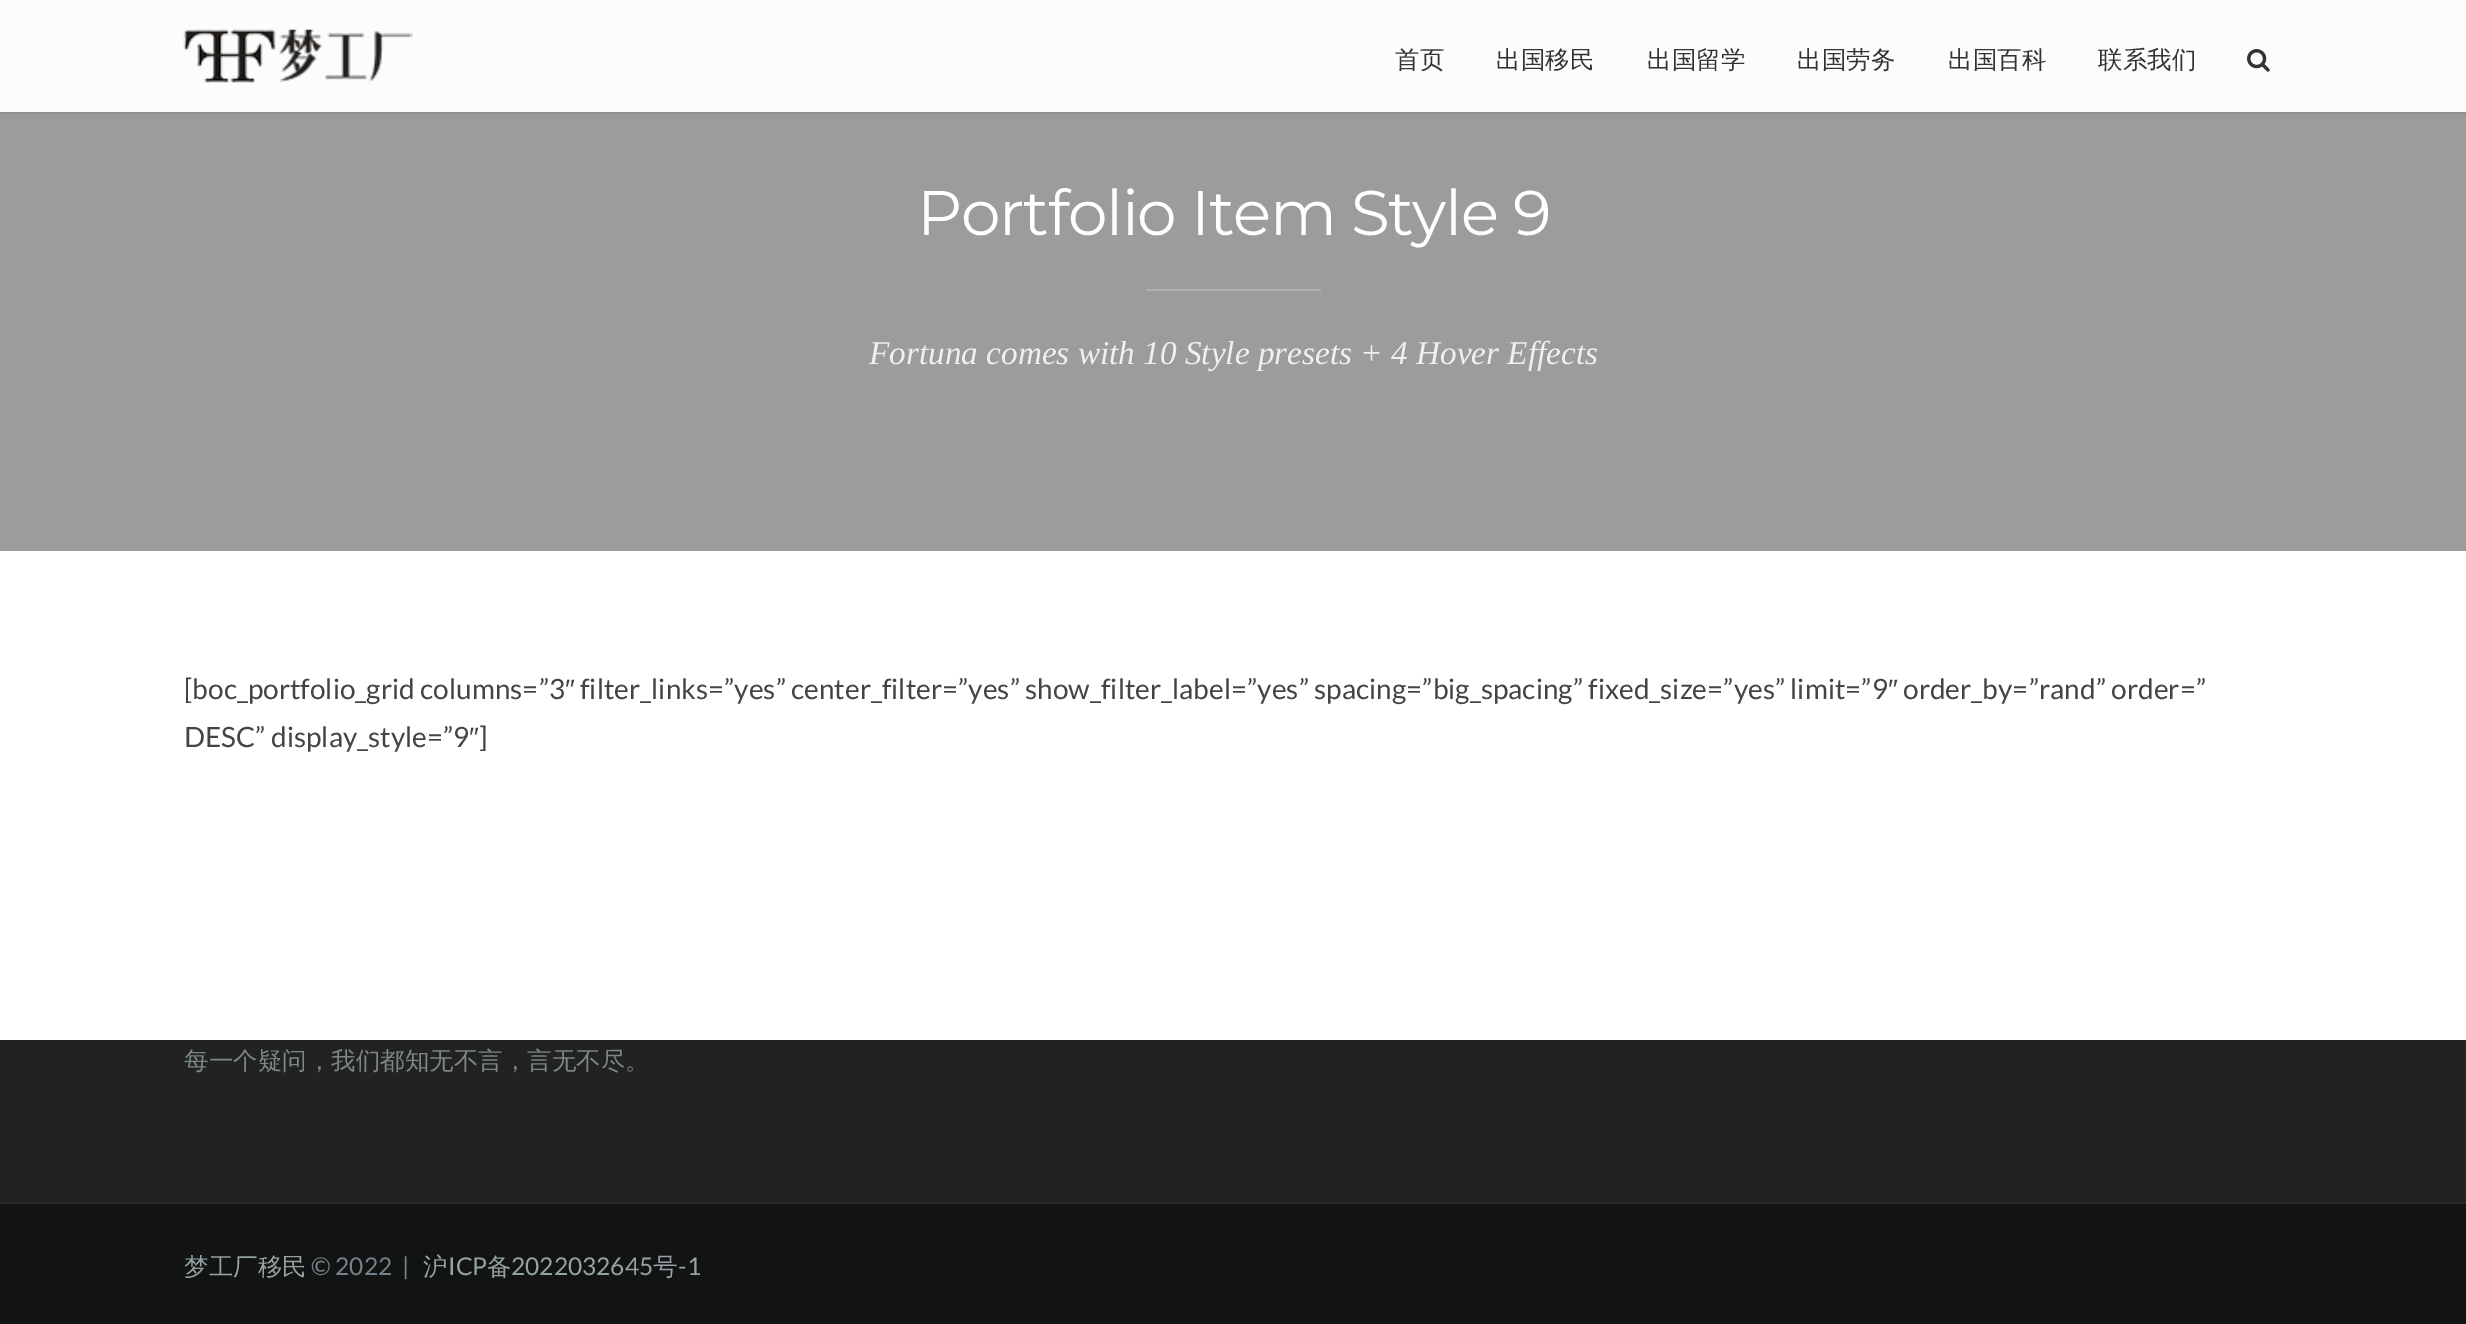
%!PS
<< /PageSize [2466 1324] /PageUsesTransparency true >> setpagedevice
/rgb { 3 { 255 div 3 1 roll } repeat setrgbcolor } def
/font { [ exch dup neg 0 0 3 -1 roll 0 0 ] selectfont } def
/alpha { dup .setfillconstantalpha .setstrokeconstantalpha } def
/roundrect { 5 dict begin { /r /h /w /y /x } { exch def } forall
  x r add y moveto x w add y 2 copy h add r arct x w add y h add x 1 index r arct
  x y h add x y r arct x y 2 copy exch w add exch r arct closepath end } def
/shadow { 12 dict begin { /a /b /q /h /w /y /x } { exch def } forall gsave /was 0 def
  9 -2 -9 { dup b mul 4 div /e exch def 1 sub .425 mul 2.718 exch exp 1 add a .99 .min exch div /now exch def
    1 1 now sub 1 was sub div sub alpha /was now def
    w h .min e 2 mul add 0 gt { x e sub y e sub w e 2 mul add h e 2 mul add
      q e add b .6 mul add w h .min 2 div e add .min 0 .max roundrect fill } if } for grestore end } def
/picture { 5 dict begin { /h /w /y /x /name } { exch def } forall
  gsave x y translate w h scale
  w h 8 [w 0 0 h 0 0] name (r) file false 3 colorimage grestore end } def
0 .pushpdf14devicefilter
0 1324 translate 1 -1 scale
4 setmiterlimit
34 34 34 rgb
0 0 2466 1324 rectfill
156 156 156 rgb
0 112 2466 439 rectfill
0 0 0 rgb
0 -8 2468 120 0 2.5 0.2 shadow
252 252 252 rgb
0 0 2466 112 rectfill
(img/1.rgb) 183 29 230 54 picture
(img/2.rgb) 2247 49 23 23 picture
[
  [0 551 2466 489 255 255 255]
  [1146 289 175 2 176 176 176]
  [0 1204 2466 120 18 19 19]
  [0 1202 2466 2 42 42 42]
] { aload pop rgb rectfill } forall
/WenQuanYiZenHei-Medium 24.5 font
51 51 51 rgb
[
  [(首页) 1395 68]
  [(出国移民) 1496 68]
  [(出国留学) 1647 68]
  [(出国劳务) 1797 68]
  [(出国百科) 1948 68]
  [(联系我们) 2098 68]
] { aload pop moveto show } forall
/Montserrat-Regular 63 font
255 255 255 rgb
917 235 moveto -1.25 0 (Portfolio Item Style 9) ashow
/LiberationSerif-Italic 33.25 font
240 240 240 rgb
869 364 moveto (Fortuna comes with 10 Style presets + 4 Hover Effects) show
/Lato-Regular 28 font
68 68 68 rgb
184 699 moveto ([boc_portfolio_grid columns=”3) show
/LiberationSans-Regular 28 font
565 699 moveto (″) show
/Lato-Regular 28 font
580 699 moveto (filter_links=”yes” center_filter=”yes” show_filter_label=”yes” spacing=”big_spacing” fixed_size=”yes” limit=”9) show
/LiberationSans-Regular 28 font
1888 699 moveto (″) show
/Lato-Regular 28 font
1903 699 moveto (order_by=”rand” order=”) show
184 747 moveto (DESC” display_style=”9) show
/LiberationSans-Regular 28 font
469 747 moveto (″) show
/Lato-Regular 28 font
479 747 moveto (]) show
/WenQuanYiZenHei-Medium 24.5 font
123 136 135 rgb
184 1069 moveto (每一个疑问，我们都知无不言，言无不尽。) show
148 163 163 rgb
184 1275 moveto (梦工厂移民) show
/Lato-Regular 24.5 font
116 129 136 rgb
311 1275 moveto (© 2022  |) show
/WenQuanYiZenHei-Medium 24.5 font
148 163 163 rgb
423 1275 moveto (沪) show
/Lato-Regular 24.5 font
448 1275 moveto (ICP) show
/WenQuanYiZenHei-Medium 24.5 font
487 1275 moveto (备) show
/Lato-Regular 24.5 font
511 1275 moveto (2022032645) show
/WenQuanYiZenHei-Medium 24.5 font
653 1275 moveto (号) show
/Lato-Regular 24.5 font
678 1275 moveto (-1) show
.poppdf14devicefilter showpage
